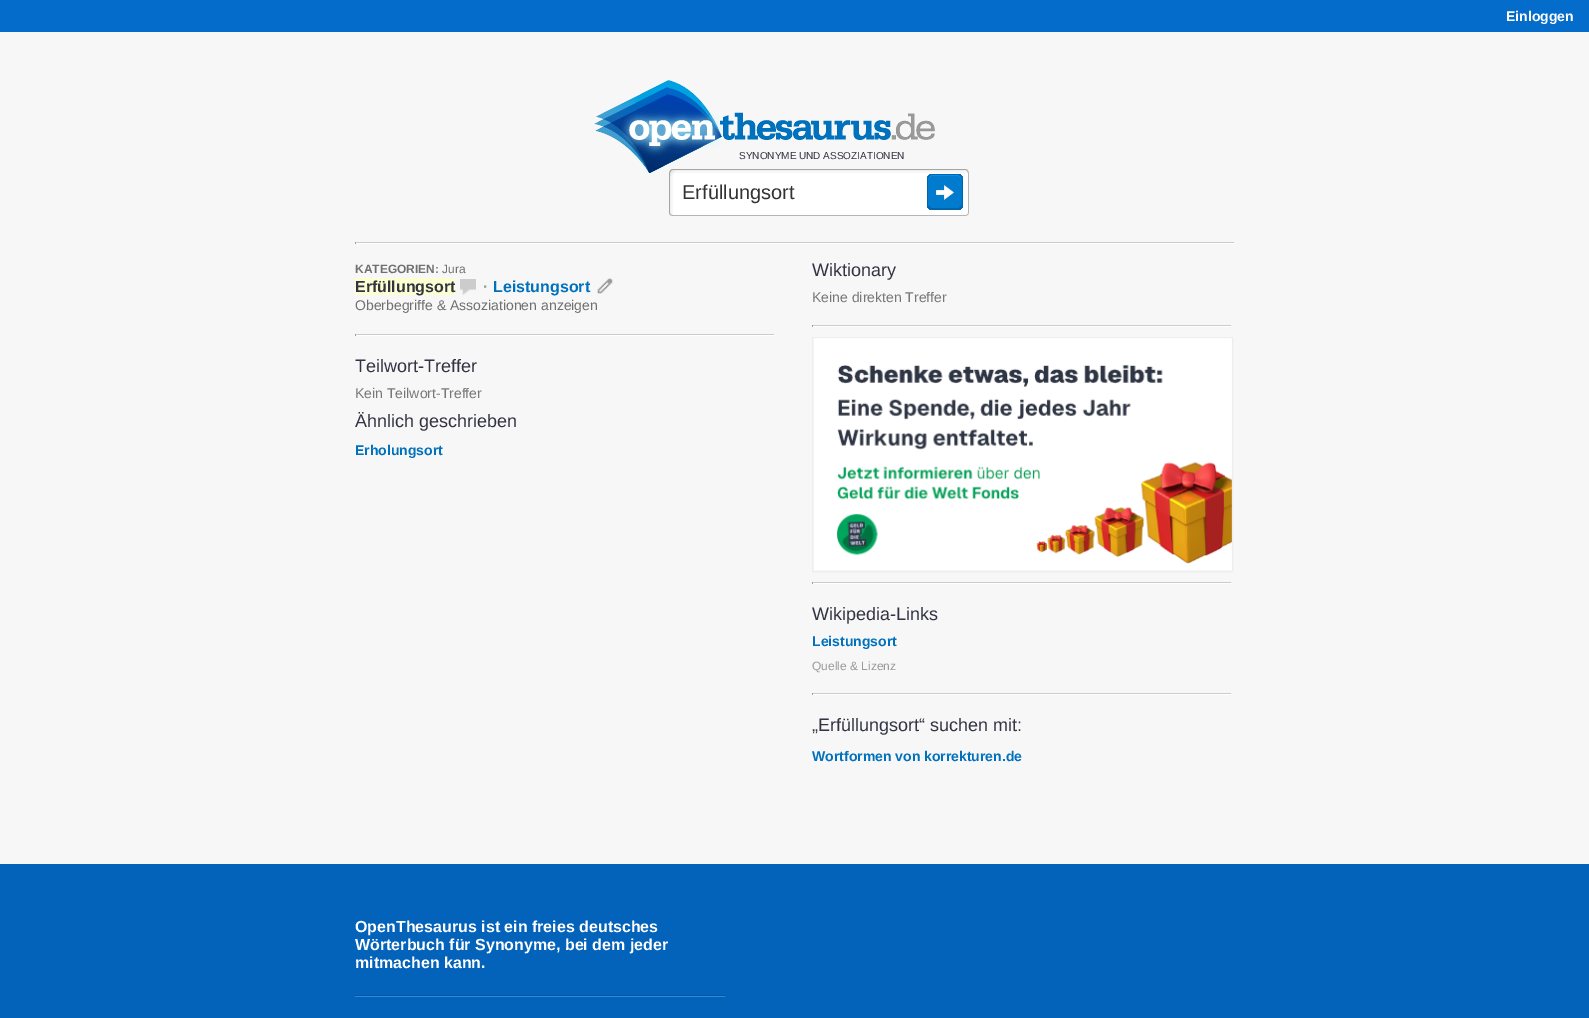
%!PS
<< /PageSize [1589 1018] >> setpagedevice
/rgb { 3 { 255 div 3 1 roll } repeat setrgbcolor } def
/font { [ exch dup neg 0 0 3 -1 roll 0 0 ] selectfont } def
/picture { 5 dict begin { /h /w /y /x /name } { exch def } forall
  gsave x y translate w h scale
  w h 8 [w 0 0 h 0 0] name (r) file false 3 colorimage grestore end } def
0 1018 translate 1 -1 scale
4 setmiterlimit
3 98 185 rgb
0 0 1589 1018 rectfill
4 108 203 rgb
0 0 1589 32 rectfill
247 247 247 rgb
0 32 1589 832 rectfill
(img/1.rgb) 594 80 341 93 picture
(img/2.rgb) 669 169 300 47 picture
(img/3.rgb) 927 174 36 36 picture
[
  [355 242 880 1 204 204 204]
  [1234 242 1 2 238 238 238]
  [355 243 880 1 255 255 255]
  [355 242 1 2 159 159 159]
  [355 278 100 17 252 255 208]
] { aload pop rgb rectfill } forall
(img/4.rgb) 460 279 16 16 picture
(img/5.rgb) 597 278 16 16 picture
[
  [355 334 420 1 204 204 204]
  [774 334 1 2 238 238 238]
  [355 335 420 1 255 255 255]
  [355 334 1 2 159 159 159]
  [812 325 420 1 204 204 204]
  [1231 325 1 2 238 238 238]
  [812 326 420 1 255 255 255]
  [812 325 1 2 159 159 159]
] { aload pop rgb rectfill } forall
238 238 238 rgb
812.5 337.5 420 234 rectstroke
(img/6.rgb) 814 338 418 232 picture
[
  [812 582 420 1 204 204 204]
  [1231 582 1 2 238 238 238]
  [812 583 420 1 255 255 255]
  [812 582 1 2 159 159 159]
  [812 693 420 1 204 204 204]
  [1231 693 1 2 238 238 238]
  [812 694 420 1 255 255 255]
  [812 693 1 2 159 159 159]
] { aload pop rgb rectfill } forall
(img/7.rgb) 355 995 370 2 picture
/LiberationSans-Bold 14 font
255 255 255 rgb
1506 21 moveto (Einloggen) show
/LiberationSans-Regular 10 font
51 51 68 rgb
739 159 moveto (SYNONYME UND ASSOZIATIONEN) show
/LiberationSans-Regular 20 font
51 51 51 rgb
682 199 moveto (Erfüllungsort) show
/LiberationSans-Bold 12 font
112 112 112 rgb
355 273 moveto (KATEGORIEN:) show
/LiberationSans-Regular 12 font
442 273 moveto (Jura) show
/LiberationSans-Bold 16 font
51 51 68 rgb
355 292 moveto (Erfüllungsort) show
153 153 153 rgb
483 292 moveto (·) show
0 113 189 rgb
493 292 moveto (Leistungsort) show
/LiberationSans-Regular 14 font
112 112 112 rgb
355 310 moveto (Oberbegriffe & Assoziationen anzeigen) show
/LiberationSans-Regular 18 font
51 51 68 rgb
355 372 moveto (Teilwort-Treffer) show
/LiberationSans-Regular 14 font
119 119 119 rgb
355 398 moveto (Kein Teilwort-Treffer) show
/LiberationSans-Regular 18 font
51 51 68 rgb
355 427 moveto (Ähnlich geschrieben) show
/LiberationSans-Bold 14 font
0 113 189 rgb
355 455 moveto (Erholungsort) show
/LiberationSans-Regular 18 font
51 51 68 rgb
812 276 moveto (Wiktionary) show
/LiberationSans-Regular 14 font
119 119 119 rgb
812 302 moveto (Keine direkten Treffer) show
/LiberationSans-Regular 18 font
51 51 68 rgb
812 620 moveto (Wikipedia-Links) show
/LiberationSans-Bold 14 font
0 113 189 rgb
812 646 moveto (Leistungsort) show
/LiberationSans-Regular 12 font
153 153 153 rgb
812 670 moveto (Quelle & Lizenz) show
/LiberationSans-Regular 18 font
51 51 68 rgb
812 731 moveto („Erfüllungsort“ suchen mit:) show
/LiberationSans-Bold 14 font
0 113 189 rgb
812 761 moveto (Wortformen von korrekturen.de) show
/LiberationSans-Bold 16 font
255 255 255 rgb
[
  [(OpenThesaurus ist ein freies deutsches) 355 932]
  [(Wörterbuch für Synonyme, bei dem jeder) 355 950]
  [(mitmachen kann.) 355 968]
] { aload pop moveto show } forall
showpage
